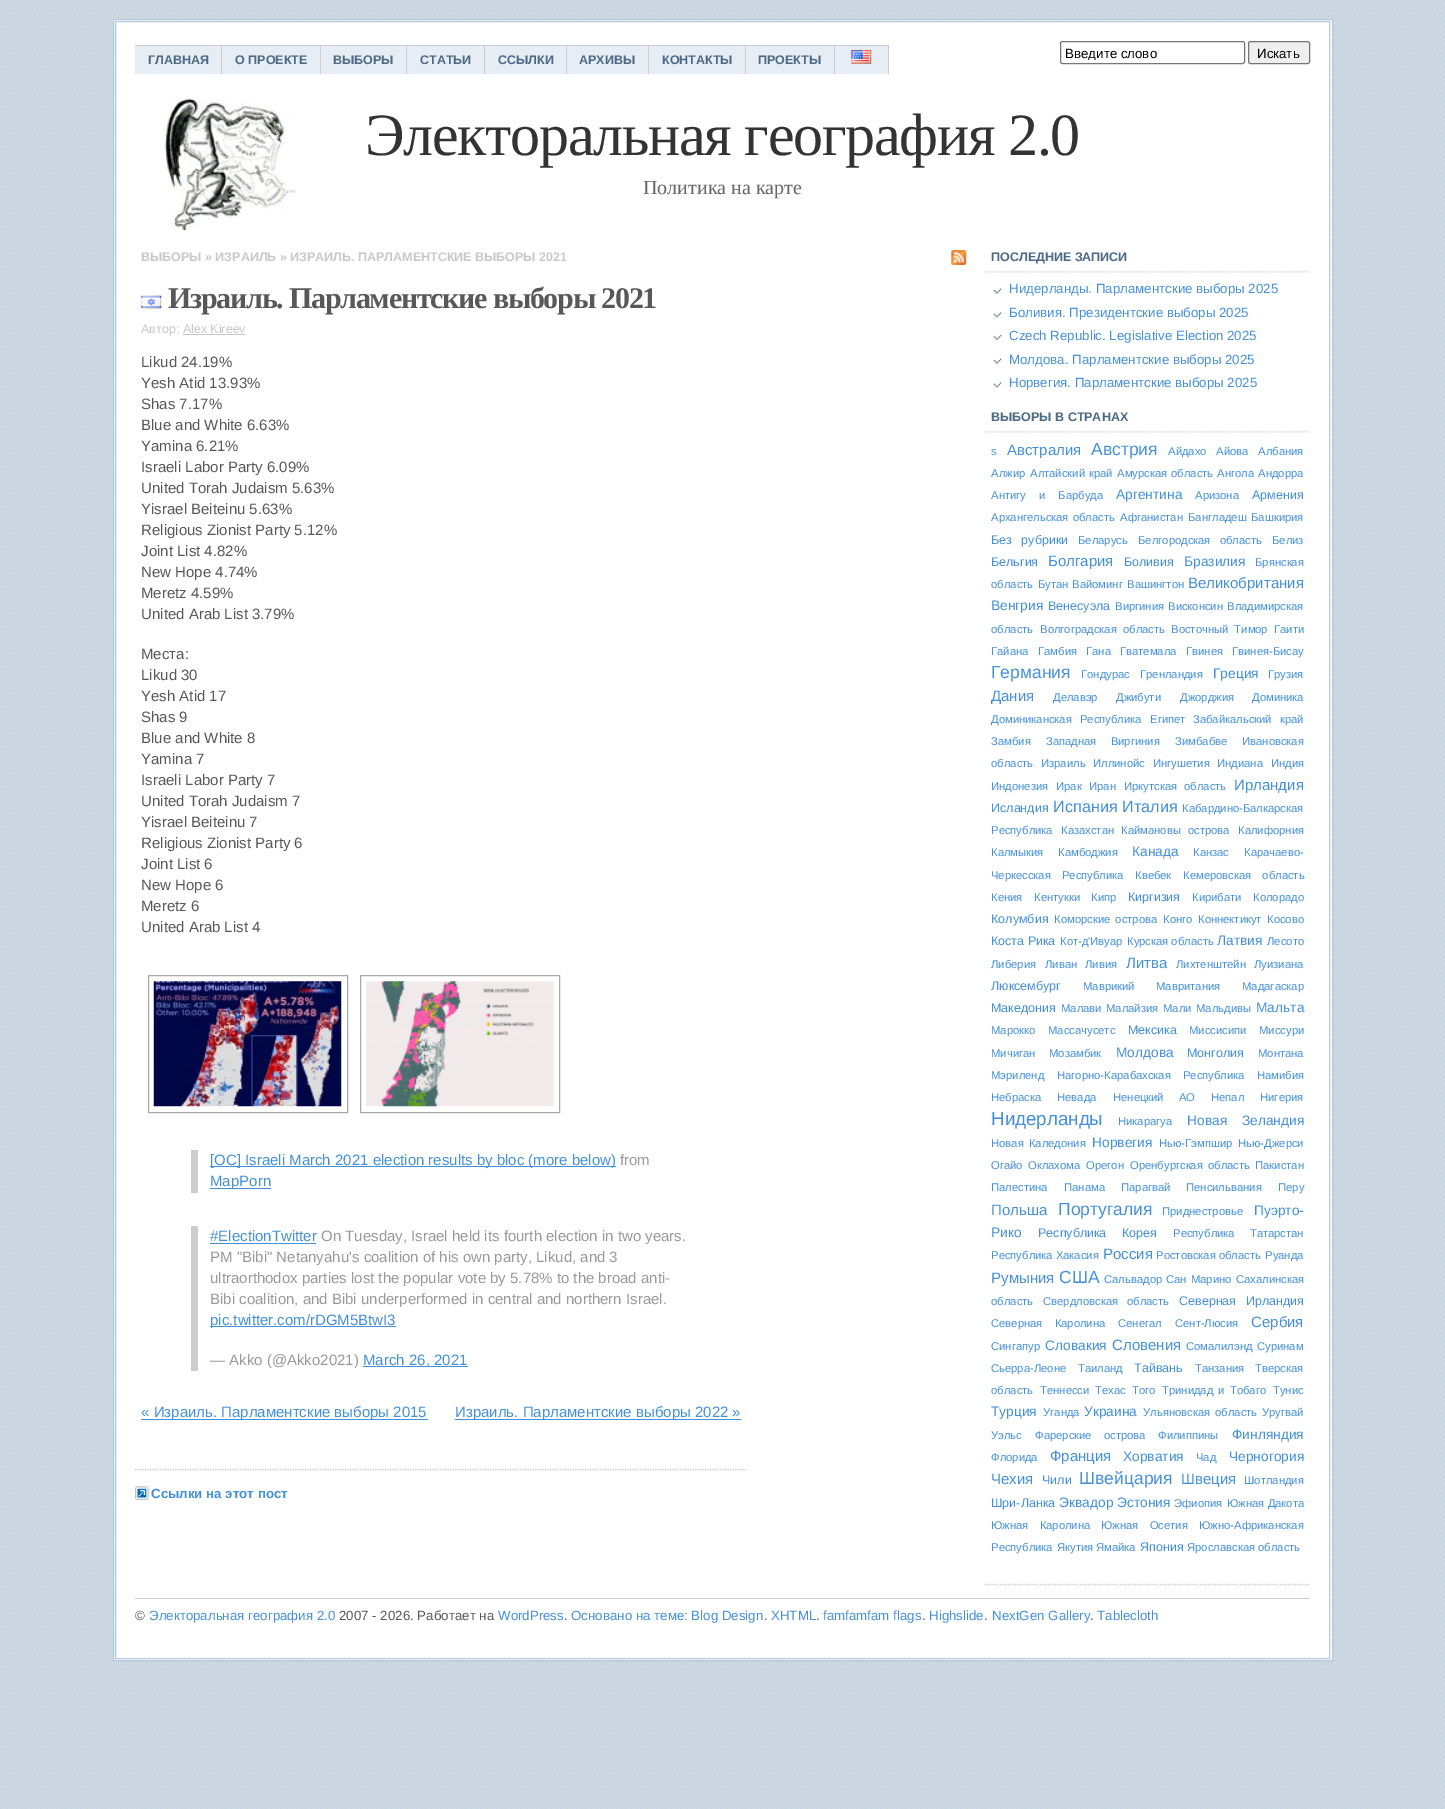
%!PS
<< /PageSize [1445 1809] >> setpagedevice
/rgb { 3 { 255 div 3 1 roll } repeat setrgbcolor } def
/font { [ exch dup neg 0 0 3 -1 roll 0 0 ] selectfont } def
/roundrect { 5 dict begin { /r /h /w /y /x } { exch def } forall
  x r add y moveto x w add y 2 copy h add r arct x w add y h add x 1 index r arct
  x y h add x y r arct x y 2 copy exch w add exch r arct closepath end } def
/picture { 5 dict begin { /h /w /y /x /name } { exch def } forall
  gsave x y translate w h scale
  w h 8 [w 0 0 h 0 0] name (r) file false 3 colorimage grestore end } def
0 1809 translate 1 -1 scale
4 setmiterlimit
203 218 232 rgb
0 0 1445 1809 rectfill
(img/1.rgb) 0 0 1445 1809 picture
255 255 255 rgb
113.5 19.5 moveto 1332.5 19.5 lineto 1332.5 1660.5 lineto 113.5 1660.5 lineto closepath gsave fill grestore
181 200 218 rgb
stroke
115.5 21.5 1214 1637 rectstroke
[
  [135 46 185 28 230 237 244]
  [135 45 754 1 204 204 204]
  [221 45 1 29 204 204 204]
  [320 45 1 29 204 204 204]
  [321 46 163 28 230 237 244]
  [406 45 1 29 204 204 204]
  [484 45 1 29 204 204 204]
  [485 46 163 28 230 237 244]
  [566 45 1 29 204 204 204]
  [648 45 1 29 204 204 204]
  [649 46 96 28 230 237 244]
  [745 45 1 29 204 204 204]
  [746 46 88 28 230 237 244]
  [834 45 1 29 204 204 204]
  [835 46 53 28 230 237 244]
  [888 45 1 29 204 204 204]
] { aload pop rgb rectfill } forall
(img/2.rgb) 851 50 21 14 picture
118 118 118 rgb
1060.5 41.5 184 22 2 roundrect stroke
239 239 239 rgb
1248.5 41.5 61 22 2 roundrect gsave fill grestore
118 118 118 rgb
stroke
(img/3.rgb) 164 98 132 132 picture
(img/4.rgb) 951 250 16 15 picture
204 204 204 rgb
1.2 setlinewidth
[1.25 1.25] 0 setdash
135 1469.5 moveto 747.5 1469.5 lineto stroke
(img/5.rgb) 141 295 21 14 picture
201 201 201 rgb
183 334 63 1 rectfill
169 169 169 rgb
1 setlinewidth
[] 0 setdash
148.5 975.5 199 137 rectstroke
(img/6.rgb) 153 981 189 126 picture
360.5 975.5 199 137 rectstroke
(img/7.rgb) 366 981 188 126 picture
[
  [191 1150 7 43 204 204 204]
  [210 1166 406 1 69 145 216]
  [210 1188 61 1 69 145 216]
  [191 1226 7 145 204 204 204]
  [210 1243 106 1 69 145 216]
  [210 1326 186 1 69 145 216]
  [363 1366 105 1 69 145 216]
  [141 1419 287 1 69 145 216]
  [455 1419 286 1 69 145 216]
] { aload pop rgb rectfill } forall
(img/8.rgb) 135 1486 14 14 picture
204 204 204 rgb
1.2 setlinewidth
[1.25 1.25] 0 setdash
985 1584.5 moveto 1310 1584.5 lineto stroke
(img/9.rgb) 985 271 325 2 picture
(img/10.rgb) 993 288 9 6 picture
(img/11.rgb) 993 312 9 6 picture
(img/12.rgb) 993 334 9 7 picture
(img/10.rgb) 993 358 9 6 picture
(img/11.rgb) 993 382 9 6 picture
(img/9.rgb) 985 431 325 2 picture
135 1598 1175 1 rectfill
/LiberationSans-Bold 12.5 font
76 106 133 rgb
[
  [(ГЛАВНАЯ) 148 64]
  [(О ПРОЕКТЕ) 235 64]
  [(ВЫБОРЫ) 333 64]
  [(СТАТЬИ) 420 64]
  [(ССЫЛКИ) 498 64]
  [(АРХИВЫ) 579 64]
  [(КОНТАКТЫ) 662 64]
  [(ПРОЕКТЫ) 758 64]
] { aload pop moveto show } forall
gsave
1065 45 175 15 rectclip
/LiberationSans-Regular 13.3 font
0 0 0 rgb
1065 58 moveto (Введите слово) show
grestore
/LiberationSans-Regular 13.3 font
0 0 0 rgb
1257 58 moveto (Искать) show
/LiberationSerif-Regular 60 font
51 51 51 rgb
365 155 moveto -1.25 0 (Электоральная география 2.0) ashow
/LiberationSerif-Regular 20 font
102 102 102 rgb
643 194 moveto (Политика на карте) show
/LiberationSans-Bold 12.5 font
201 201 201 rgb
141 261 moveto (ВЫБОРЫ » ИЗРАИЛЬ » ИЗРАИЛЬ. ПАРЛАМЕНТСКИЕ ВЫБОРЫ 2021) show
/LiberationSerif-Bold 30 font
89 88 88 rgb
168 308 moveto -1.25 0 (Израиль. Парламентские выборы 2021) ashow
/LiberationSans-Regular 12.5 font
201 201 201 rgb
141 333 moveto (Автор: Alex Kireev) show
/LiberationSans-Regular 15 font
89 88 88 rgb
[
  [(Likud 24.19%) 141 367]
  [(Yesh Atid 13.93%) 141 388]
  [(Shas 7.17%) 141 409]
  [(Blue and White 6.63%) 141 430]
  [(Yamina 6.21%) 141 451]
  [(Israeli Labor Party 6.09%) 141 472]
  [(United Torah Judaism 5.63%) 141 493]
  [(Yisrael Beiteinu 5.63%) 141 514]
  [(Religious Zionist Party 5.12%) 141 535]
  [(Joint List 4.82%) 141 556]
  [(New Hope 4.74%) 141 577]
  [(Meretz 4.59%) 141 598]
  [(United Arab List 3.79%) 141 619]
  [(Места:) 141 659]
  [(Likud 30) 141 680]
  [(Yesh Atid 17) 141 701]
  [(Shas 9) 141 722]
  [(Blue and White 8) 141 743]
  [(Yamina 7) 141 764]
  [(Israeli Labor Party 7) 141 785]
  [(United Torah Judaism 7) 141 806]
  [(Yisrael Beiteinu 7) 141 827]
  [(Religious Zionist Party 6) 141 848]
  [(Joint List 6) 141 869]
  [(New Hope 6) 141 890]
  [(Meretz 6) 141 911]
  [(United Arab List 4) 141 932]
] { aload pop moveto show } forall
69 145 216 rgb
210 1165 moveto ([OC] Israeli March 2021 election results by bloc \(more below\)) show
153 153 153 rgb
620 1165 moveto (from) show
69 145 216 rgb
210 1186 moveto (MapPorn) show
210 1241 moveto (#ElectionTwitter) show
153 153 153 rgb
[
  [(On Tuesday, Israel held its fourth election in two years.) 321 1241]
  [(PM "Bibi" Netanyahu's coalition of his own party, Likud, and 3) 210 1262]
  [(ultraorthodox parties lost the popular vote by 5.78% to the broad anti-) 210 1283]
  [(Bibi coalition, and Bibi underperformed in central and northern Israel.) 210 1304]
] { aload pop moveto show } forall
69 145 216 rgb
210 1325 moveto (pic.twitter.com/rDGM5BtwI3) show
153 153 153 rgb
210 1365 moveto (— Akko \(@Akko2021\)) show
69 145 216 rgb
[
  [(March 26, 2021) 363 1365]
  [(« Израиль. Парламентские выборы 2015) 141 1417]
  [(Израиль. Парламентские выборы 2022 ») 455 1417]
] { aload pop moveto show } forall
/LiberationSans-Bold 13.3 font
151 1498 moveto (Ссылки на этот пост) show
/LiberationSans-Bold 12.5 font
76 106 133 rgb
991 261 moveto (ПОСЛЕДНИЕ ЗАПИСИ) show
/LiberationSans-Regular 13.3 font
69 145 216 rgb
[
  [(Нидерланды. Парламентские выборы 2025) 1009 293]
  [(Боливия. Президентские выборы 2025) 1009 317]
  [(Czech Republic. Legislative Election 2025) 1009 340]
  [(Молдова. Парламентские выборы 2025) 1009 364]
  [(Норвегия. Парламентские выборы 2025) 1009 387]
] { aload pop moveto show } forall
/LiberationSans-Bold 12.5 font
76 106 133 rgb
991 421 moveto (ВЫБОРЫ В СТРАНАХ) show
/LiberationSans-Regular 11.25 font
69 145 216 rgb
991 455 moveto (s) show
/LiberationSans-Regular 15 font
1007 455 moveto (Австралия) show
/LiberationSans-Regular 17.5 font
1091 455 moveto (Австрия) show
/LiberationSans-Regular 11.25 font
[
  [(Айдахо) 1168 455]
  [(Айова) 1216 455]
  [(Албания) 1258 455]
  [(Алжир) 991 477]
] { aload pop moveto show } forall
1030 477 moveto 1 0 32 (Алтайский край) widthshow
1117 477 moveto 1 0 32 (Амурская область) widthshow
1217 477 moveto (Ангола) show
1258 477 moveto (Андорра) show
991 499 moveto 10 0 32 (Антигу и Барбуда) widthshow
/LiberationSans-Regular 13.75 font
1116 499 moveto (Аргентина) show
/LiberationSans-Regular 11.25 font
1195 499 moveto (Аризона) show
/LiberationSans-Regular 12.5 font
1252 499 moveto (Армения) show
/LiberationSans-Regular 11.25 font
991 521 moveto 1 0 32 (Архангельская область) widthshow
[
  [(Афганистан) 1120 521]
  [(Бангладеш) 1188 521]
  [(Башкирия) 1251 521]
] { aload pop moveto show } forall
/LiberationSans-Regular 12.5 font
991 544 moveto 6 0 32 (Без рубрики) widthshow
/LiberationSans-Regular 11.25 font
1078 544 moveto (Беларусь) show
1138 544 moveto 6 0 32 (Белгородская область) widthshow
1272 544 moveto (Белиз) show
/LiberationSans-Regular 12.5 font
991 566 moveto (Бельгия) show
/LiberationSans-Regular 15 font
1048 566 moveto (Болгария) show
/LiberationSans-Regular 12.5 font
1124 566 moveto (Боливия) show
/LiberationSans-Regular 13.75 font
1184 566 moveto (Бразилия) show
/LiberationSans-Regular 11.25 font
[
  [(Брянская) 1255 566]
  [(область) 991 588]
  [(Бутан) 1038 588]
  [(Вайоминг) 1072 588]
  [(Вашингтон) 1127 588]
] { aload pop moveto show } forall
/LiberationSans-Regular 15 font
1188 588 moveto (Великобритания) show
/LiberationSans-Regular 13.75 font
991 610 moveto (Венгрия) show
/LiberationSans-Regular 12.5 font
1048 610 moveto (Венесуэла) show
/LiberationSans-Regular 11.25 font
[
  [(Виргиния) 1115 610]
  [(Висконсин) 1168 610]
  [(Владимирская) 1227 610]
  [(область) 991 633]
] { aload pop moveto show } forall
1040 633 moveto 3 0 32 (Волгоградская область) widthshow
1171 633 moveto 3 0 32 (Восточный Тимор) widthshow
[
  [(Гаити) 1274 633]
  [(Гайана) 991 655]
  [(Гамбия) 1038 655]
  [(Гана) 1086 655]
  [(Гватемала) 1120 655]
  [(Гвинея) 1186 655]
  [(Гвинея-Бисау) 1232 655]
] { aload pop moveto show } forall
/LiberationSans-Regular 17.5 font
991 678 moveto (Германия) show
/LiberationSans-Regular 11.25 font
1081 678 moveto (Гондурас) show
1140 678 moveto (Гренландия) show
/LiberationSans-Regular 13.75 font
1213 678 moveto (Греция) show
/LiberationSans-Regular 11.25 font
1268 678 moveto (Грузия) show
/LiberationSans-Regular 15 font
991 701 moveto (Дания) show
/LiberationSans-Regular 11.25 font
[
  [(Делавэр) 1053 701]
  [(Джибути) 1116 701]
  [(Джорджия) 1180 701]
  [(Доминика) 1252 701]
] { aload pop moveto show } forall
991 723 moveto 5 0 32 (Доминиканская Республика) widthshow
1150 723 moveto (Египет) show
1193 723 moveto 5 0 32 (Забайкальский край) widthshow
991 745 moveto (Замбия) show
1046 745 moveto 11 0 32 (Западная Виргиния) widthshow
[
  [(Зимбабве) 1175 745]
  [(Ивановская) 1242 745]
  [(область) 991 767]
  [(Израиль) 1041 767]
  [(Иллинойс) 1093 767]
  [(Ингушетия) 1153 767]
  [(Индиана) 1217 767]
  [(Индия) 1271 767]
  [(Индонезия) 991 790]
  [(Ирак) 1056 790]
  [(Иран) 1089 790]
] { aload pop moveto show } forall
1124 790 moveto 4 0 32 (Иркутская область) widthshow
/LiberationSans-Regular 15 font
1234 790 moveto (Ирландия) show
/LiberationSans-Regular 12.5 font
991 812 moveto (Исландия) show
/LiberationSans-Regular 16.25 font
1053 812 moveto (Испания Италия) show
/LiberationSans-Regular 11.25 font
[
  [(Кабардино-Балкарская) 1182 812]
  [(Республика) 991 834]
  [(Казахстан) 1061 834]
] { aload pop moveto show } forall
1121 834 moveto 4 0 32 (Каймановы острова) widthshow
[
  [(Калифорния) 1238 834]
  [(Калмыкия) 991 856]
  [(Камбоджия) 1058 856]
] { aload pop moveto show } forall
/LiberationSans-Regular 13.75 font
1132 856 moveto (Канада) show
/LiberationSans-Regular 11.25 font
1193 856 moveto (Канзас) show
1244 856 moveto (Карачаево-) show
991 879 moveto 8 0 32 (Черкесская Республика) widthshow
1135 879 moveto (Квебек) show
1183 879 moveto 8 0 32 (Кемеровская область) widthshow
[
  [(Кения) 991 901]
  [(Кентукки) 1034 901]
  [(Кипр) 1091 901]
] { aload pop moveto show } forall
/LiberationSans-Regular 12.5 font
1128 901 moveto (Киргизия) show
/LiberationSans-Regular 11.25 font
1192 901 moveto (Кирибати) show
1253 901 moveto (Колорадо) show
/LiberationSans-Regular 12.5 font
991 923 moveto (Колумбия) show
/LiberationSans-Regular 11.25 font
1054 923 moveto 2 0 32 (Коморские острова) widthshow
[
  [(Конго) 1163 923]
  [(Коннектикут) 1198 923]
  [(Косово) 1267 923]
] { aload pop moveto show } forall
/LiberationSans-Regular 12.5 font
991 945 moveto (Коста Рика) show
/LiberationSans-Regular 11.25 font
1060 945 moveto (Кот-д'Ивуар) show
1127 945 moveto (Курская область) show
/LiberationSans-Regular 13.75 font
1217 945 moveto (Латвия) show
/LiberationSans-Regular 11.25 font
[
  [(Лесото) 1267 945]
  [(Либерия) 991 968]
  [(Ливан) 1045 968]
  [(Ливия) 1085 968]
] { aload pop moveto show } forall
/LiberationSans-Regular 15 font
1126 968 moveto (Литва) show
/LiberationSans-Regular 11.25 font
1176 968 moveto (Лихтенштейн) show
1254 968 moveto (Луизиана) show
/LiberationSans-Regular 12.5 font
991 990 moveto (Люксембург) show
/LiberationSans-Regular 11.25 font
[
  [(Маврикий) 1083 990]
  [(Мавритания) 1156 990]
  [(Мадагаскар) 1242 990]
] { aload pop moveto show } forall
/LiberationSans-Regular 12.5 font
991 1012 moveto (Македония) show
/LiberationSans-Regular 11.25 font
[
  [(Малави) 1061 1012]
  [(Малайзия) 1106 1012]
  [(Мали) 1163 1012]
  [(Мальдивы) 1196 1012]
] { aload pop moveto show } forall
/LiberationSans-Regular 13.75 font
1256 1012 moveto (Мальта) show
/LiberationSans-Regular 11.25 font
991 1034 moveto (Марокко) show
1048 1034 moveto (Массачусетс) show
/LiberationSans-Regular 12.5 font
1128 1034 moveto (Мексика) show
/LiberationSans-Regular 11.25 font
[
  [(Миссисипи) 1189 1034]
  [(Миссури) 1259 1034]
  [(Мичиган) 991 1057]
  [(Мозамбик) 1049 1057]
] { aload pop moveto show } forall
/LiberationSans-Regular 13.75 font
1116 1057 moveto (Молдова) show
/LiberationSans-Regular 12.5 font
1187 1057 moveto (Монголия) show
/LiberationSans-Regular 11.25 font
1258 1057 moveto (Монтана) show
991 1079 moveto (Мэриленд) show
1057 1079 moveto 9 0 32 (Нагорно-Карабахская Республика) widthshow
[
  [(Намибия) 1257 1079]
  [(Небраска) 991 1101]
  [(Невада) 1057 1101]
] { aload pop moveto show } forall
1113 1101 moveto 12 0 32 (Ненецкий АО) widthshow
1211 1101 moveto (Непал) show
1260 1101 moveto (Нигерия) show
/LiberationSans-Regular 18.75 font
991 1125 moveto (Нидерланды) show
/LiberationSans-Regular 11.25 font
1118 1125 moveto (Никарагуа) show
/LiberationSans-Regular 13.75 font
1187 1125 moveto 11 0 32 (Новая Зеландия) widthshow
/LiberationSans-Regular 11.25 font
991 1147 moveto 2 0 32 (Новая Каледония) widthshow
/LiberationSans-Regular 13.75 font
1092 1147 moveto (Норвегия) show
/LiberationSans-Regular 11.25 font
[
  [(Нью-Гэмпшир) 1159 1147]
  [(Нью-Джерси) 1238 1147]
  [(Огайо) 991 1169]
  [(Оклахома) 1028 1169]
  [(Орегон) 1086 1169]
] { aload pop moveto show } forall
1130 1169 moveto 2 0 32 (Оренбургская область) widthshow
[
  [(Пакистан) 1255 1169]
  [(Палестина) 991 1191]
  [(Панама) 1064 1191]
  [(Парагвай) 1121 1191]
  [(Пенсильвания) 1186 1191]
  [(Перу) 1278 1191]
] { aload pop moveto show } forall
/LiberationSans-Regular 15 font
991 1215 moveto (Польша) show
/LiberationSans-Regular 17.5 font
1058 1215 moveto (Португалия) show
/LiberationSans-Regular 11.25 font
1162 1215 moveto (Приднестровье) show
/LiberationSans-Regular 13.75 font
1254 1215 moveto (Пуэрто-) show
991 1237 moveto (Рико) show
/LiberationSans-Regular 12.5 font
1038 1237 moveto 12 0 32 (Республика Корея) widthshow
/LiberationSans-Regular 11.25 font
1173 1237 moveto 12 0 32 (Республика Татарстан) widthshow
991 1259 moveto (Республика Хакасия) show
/LiberationSans-Regular 15 font
1103 1259 moveto (Россия) show
/LiberationSans-Regular 11.25 font
1156 1259 moveto (Ростовская область) show
1265 1259 moveto (Руанда) show
/LiberationSans-Regular 15 font
991 1283 moveto (Румыния) show
/LiberationSans-Regular 17.5 font
1059 1283 moveto (США) show
/LiberationSans-Regular 11.25 font
1104 1283 moveto (Сальвадор) show
1166 1283 moveto 1 0 32 (Сан Марино) widthshow
1236 1283 moveto (Сахалинская) show
991 1305 moveto (область) show
1043 1305 moveto 6 0 32 (Свердловская область) widthshow
/LiberationSans-Regular 12.5 font
1179 1305 moveto 6 0 32 (Северная Ирландия) widthshow
/LiberationSans-Regular 11.25 font
991 1327 moveto 9 0 32 (Северная Каролина) widthshow
1118 1327 moveto (Сенегал) show
1175 1327 moveto (Сент-Люсия) show
/LiberationSans-Regular 15 font
1251 1327 moveto (Сербия) show
/LiberationSans-Regular 11.25 font
991 1350 moveto (Сингапур) show
/LiberationSans-Regular 13.75 font
1045 1350 moveto (Словакия) show
/LiberationSans-Regular 15 font
1112 1350 moveto (Словения) show
/LiberationSans-Regular 11.25 font
[
  [(Сомалилэнд) 1186 1350]
  [(Суринам) 1257 1350]
  [(Сьерра-Леоне) 991 1372]
  [(Таиланд) 1078 1372]
] { aload pop moveto show } forall
/LiberationSans-Regular 12.5 font
1134 1372 moveto (Тайвань) show
/LiberationSans-Regular 11.25 font
[
  [(Танзания) 1195 1372]
  [(Тверская) 1255 1372]
  [(область) 991 1394]
  [(Теннесси) 1040 1394]
  [(Техас) 1095 1394]
  [(Того) 1132 1394]
] { aload pop moveto show } forall
1162 1394 moveto 2 0 32 (Тринидад и Тобаго) widthshow
1273 1394 moveto (Тунис) show
/LiberationSans-Regular 13.75 font
991 1416 moveto (Турция) show
/LiberationSans-Regular 11.25 font
1043 1416 moveto (Уганда) show
/LiberationSans-Regular 13.75 font
1084 1416 moveto (Украина) show
/LiberationSans-Regular 11.25 font
1143 1416 moveto 2 0 32 (Ульяновская область) widthshow
1262 1416 moveto (Уругвай) show
991 1439 moveto (Уэльс) show
1035 1439 moveto 9 0 32 (Фарерские острова) widthshow
1158 1439 moveto (Филиппины) show
/LiberationSans-Regular 13.75 font
1232 1439 moveto (Финляндия) show
/LiberationSans-Regular 11.25 font
991 1461 moveto (Флорида) show
/LiberationSans-Regular 15 font
1050 1461 moveto (Франция) show
/LiberationSans-Regular 13.75 font
1123 1461 moveto (Хорватия) show
/LiberationSans-Regular 11.25 font
1196 1461 moveto (Чад) show
/LiberationSans-Regular 13.75 font
1229 1461 moveto (Черногория) show
/LiberationSans-Regular 15 font
991 1484 moveto (Чехия) show
/LiberationSans-Regular 12.5 font
1042 1484 moveto (Чили) show
/LiberationSans-Regular 17.5 font
1079 1484 moveto (Швейцария) show
/LiberationSans-Regular 15 font
1181 1484 moveto (Швеция) show
/LiberationSans-Regular 11.25 font
1244 1484 moveto (Шотландия) show
/LiberationSans-Regular 12.5 font
991 1507 moveto (Шри-Ланка) show
/LiberationSans-Regular 13.75 font
1059 1507 moveto (Эквадор Эстония) show
/LiberationSans-Regular 11.25 font
1174 1507 moveto (Эфиопия) show
1227 1507 moveto (Южная Дакота) show
991 1529 moveto 8 0 32 (Южная Каролина) widthshow
1101 1529 moveto 8 0 32 (Южная Осетия) widthshow
[
  [(Южно-Африканская) 1199 1529]
  [(Республика) 991 1551]
  [(Якутия) 1057 1551]
  [(Ямайка) 1096 1551]
] { aload pop moveto show } forall
/LiberationSans-Regular 12.5 font
1140 1551 moveto (Япония) show
/LiberationSans-Regular 11.25 font
1187 1551 moveto (Ярославская область) show
/LiberationSans-Regular 13.3 font
89 88 88 rgb
135 1620 moveto (©) show
69 145 216 rgb
149 1620 moveto (Электоральная география 2.0) show
89 88 88 rgb
339 1620 moveto (2007 - 2026. Работает на) show
69 145 216 rgb
498 1620 moveto (WordPress) show
89 88 88 rgb
564 1620 moveto (.) show
69 145 216 rgb
571 1620 moveto (Основано на теме: Blog Design) show
89 88 88 rgb
764 1620 moveto (.) show
69 145 216 rgb
771 1620 moveto (XHTML) show
89 88 88 rgb
816 1620 moveto (.) show
69 145 216 rgb
823 1620 moveto (famfamfam flags) show
89 88 88 rgb
922 1620 moveto (.) show
69 145 216 rgb
929 1620 moveto (Highslide) show
89 88 88 rgb
984 1620 moveto (.) show
69 145 216 rgb
992 1620 moveto (NextGen Gallery) show
89 88 88 rgb
1090 1620 moveto (.) show
69 145 216 rgb
1097 1620 moveto (Tablecloth) show
showpage
